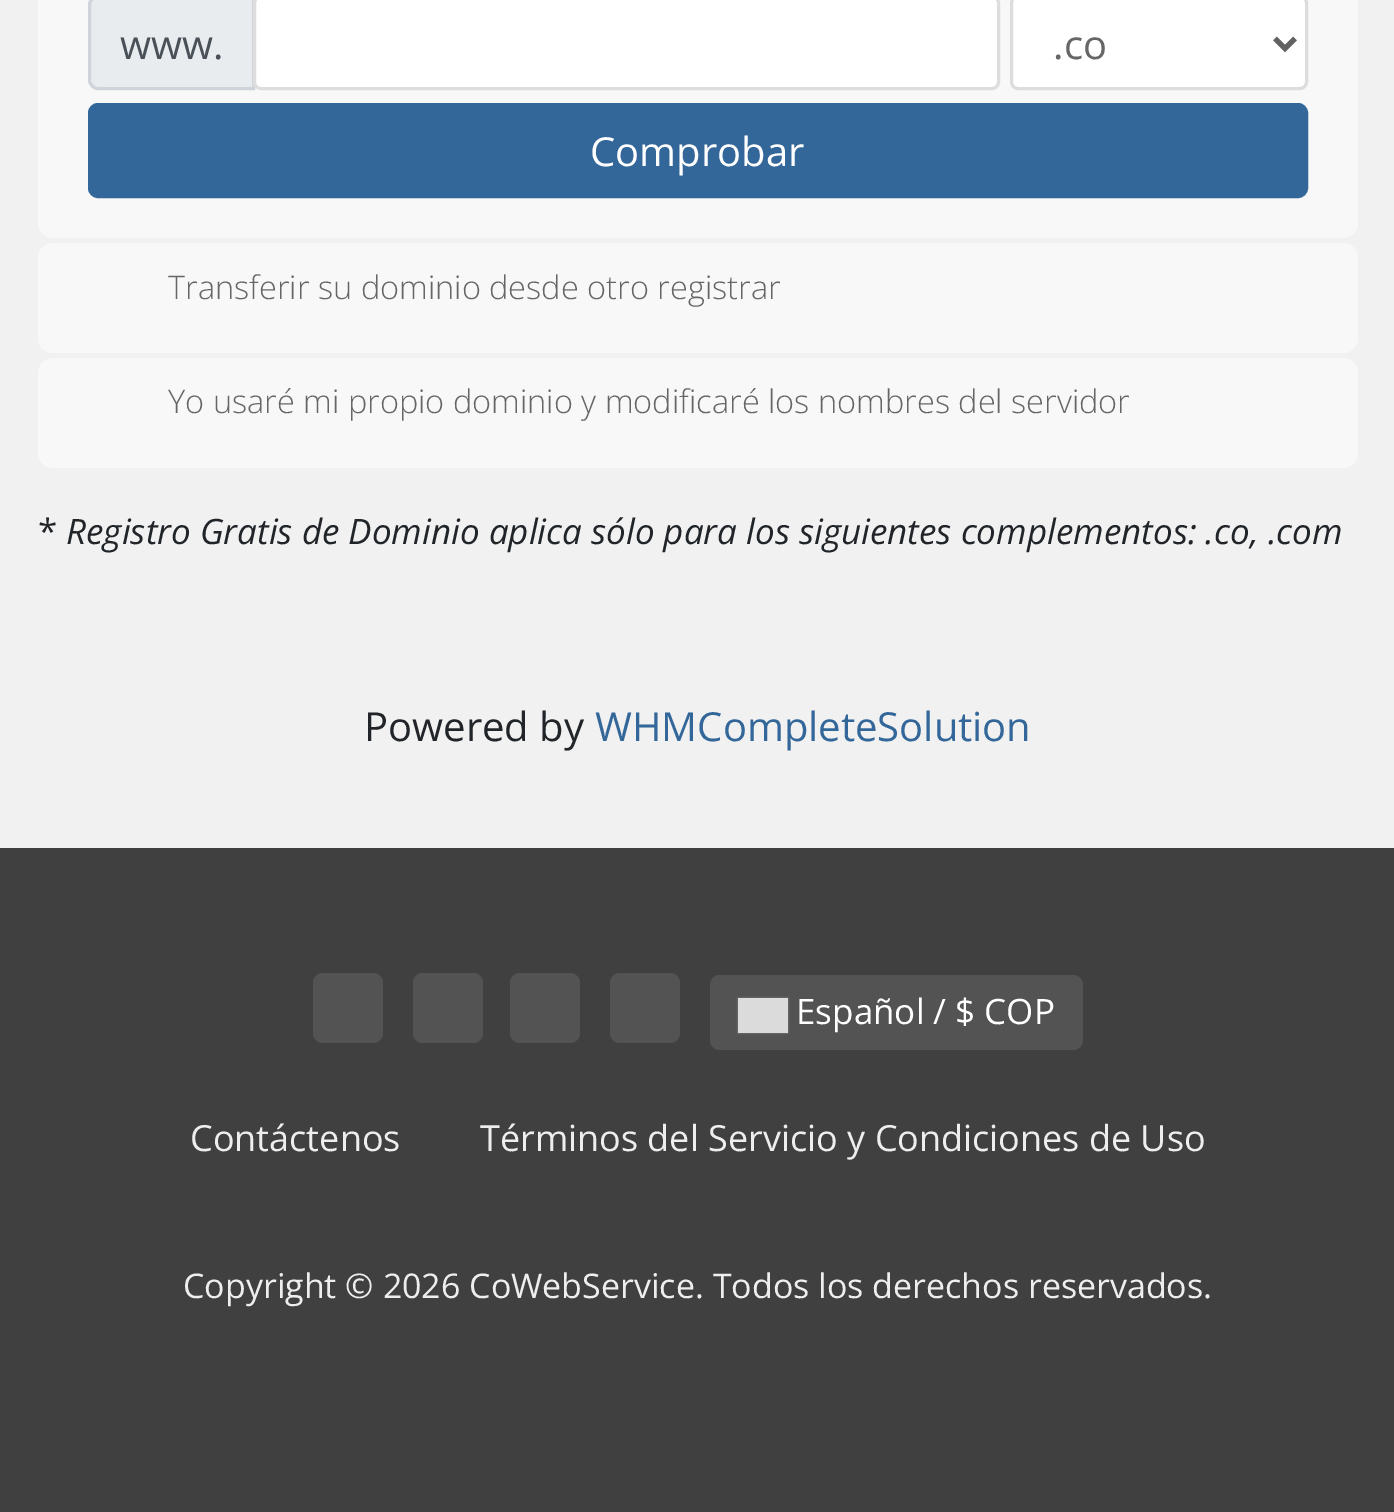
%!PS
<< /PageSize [1394 1512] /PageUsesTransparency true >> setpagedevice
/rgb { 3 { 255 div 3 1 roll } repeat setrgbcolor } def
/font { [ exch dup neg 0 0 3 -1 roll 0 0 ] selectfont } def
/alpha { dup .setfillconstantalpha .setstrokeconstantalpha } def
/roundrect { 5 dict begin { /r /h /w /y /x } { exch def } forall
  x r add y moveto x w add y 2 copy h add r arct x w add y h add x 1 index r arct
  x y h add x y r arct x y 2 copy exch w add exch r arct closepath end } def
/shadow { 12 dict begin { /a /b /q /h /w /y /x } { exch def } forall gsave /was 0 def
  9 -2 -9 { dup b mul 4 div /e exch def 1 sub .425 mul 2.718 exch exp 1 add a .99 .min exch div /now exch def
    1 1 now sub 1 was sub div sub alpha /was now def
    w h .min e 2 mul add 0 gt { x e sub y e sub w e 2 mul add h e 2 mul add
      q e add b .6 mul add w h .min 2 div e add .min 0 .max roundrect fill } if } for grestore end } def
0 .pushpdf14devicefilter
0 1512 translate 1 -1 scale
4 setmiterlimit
241 241 241 rgb
0 0 1394 1512 rectfill
248 248 248 rgb
38 -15 1320 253 15 roundrect fill
233 236 239 rgb
98 -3.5 moveto 253.5 -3.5 lineto 253.5 88.5 lineto 98 88.5 lineto 93.5 88.5 89.5 84.5 89.5 80 curveto 89.5 5 lineto 89.5 0.5 93.5 -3.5 98 -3.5 curveto closepath gsave fill grestore
206 212 218 rgb
3 setlinewidth
stroke
255 255 255 rgb
254.5 -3.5 744 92 6.5 roundrect gsave fill grestore
221 221 221 rgb
stroke
255 255 255 rgb
1011.5 -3.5 295 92 6.5 roundrect gsave fill grestore
221 221 221 rgb
stroke
98 98 98 rgb
5 setlinewidth
1275 38.5 moveto 1285 48.5 lineto 1295 38.5 lineto stroke
51 102 153 rgb
89.5 104.5 1217 92 8.5 roundrect gsave fill grestore
3 setlinewidth
stroke
248 248 248 rgb
38 243 1320 110 15 roundrect fill
38 358 1320 110 15 roundrect fill
64 64 64 rgb
0 848 1394 664 rectfill
83 83 83 rgb
313 973 70 70 10 roundrect fill
413 973 70 70 10 roundrect fill
510 973 70 70 10 roundrect fill
610 973 70 70 10 roundrect fill
710 975 373 75 10 roundrect fill
136 136 136 rgb
738 998 50 35 0 1 1 shadow
219 219 219 rgb
738 998 50 35 rectfill
/OpenSans-Regular 40 font
73 80 87 rgb
120 59 moveto (www.) show
102 102 102 rgb
1053 59 moveto (.co) show
255 255 255 rgb
590 166 moveto (Comprobar) show
/OpenSans-Light 32.5 font
102 102 102 rgb
168 299 moveto (Transferir su dominio desde otro registrar) show
168 413 moveto (Yo usaré mi propio dominio y modificaré los nombres del servidor) show
/OpenSans-Regular 35 font
33 37 41 rgb
38 544 moveto (*) show
/OpenSans-Italic 35 font
66 544 moveto (Registro Gratis de Dominio aplica sólo para los siguientes complementos: .co, .com) show
/OpenSans-Regular 40 font
364 741 moveto (Powered by) show
51 102 153 rgb
595 741 moveto (WHMCompleteSolution) show
/OpenSans-Regular 35 font
255 255 255 rgb
796 1024 moveto (Español / $ COP) show
/OpenSans-Regular 36 font
238 238 238 rgb
190 1151 moveto (Contáctenos) show
480 1151 moveto (Términos del Servicio y Condiciones de Uso) show
/OpenSans-Regular 34 font
183 1298 moveto (Copyright © 2026 CoWebService. Todos los derechos reservados.) show
.poppdf14devicefilter showpage
